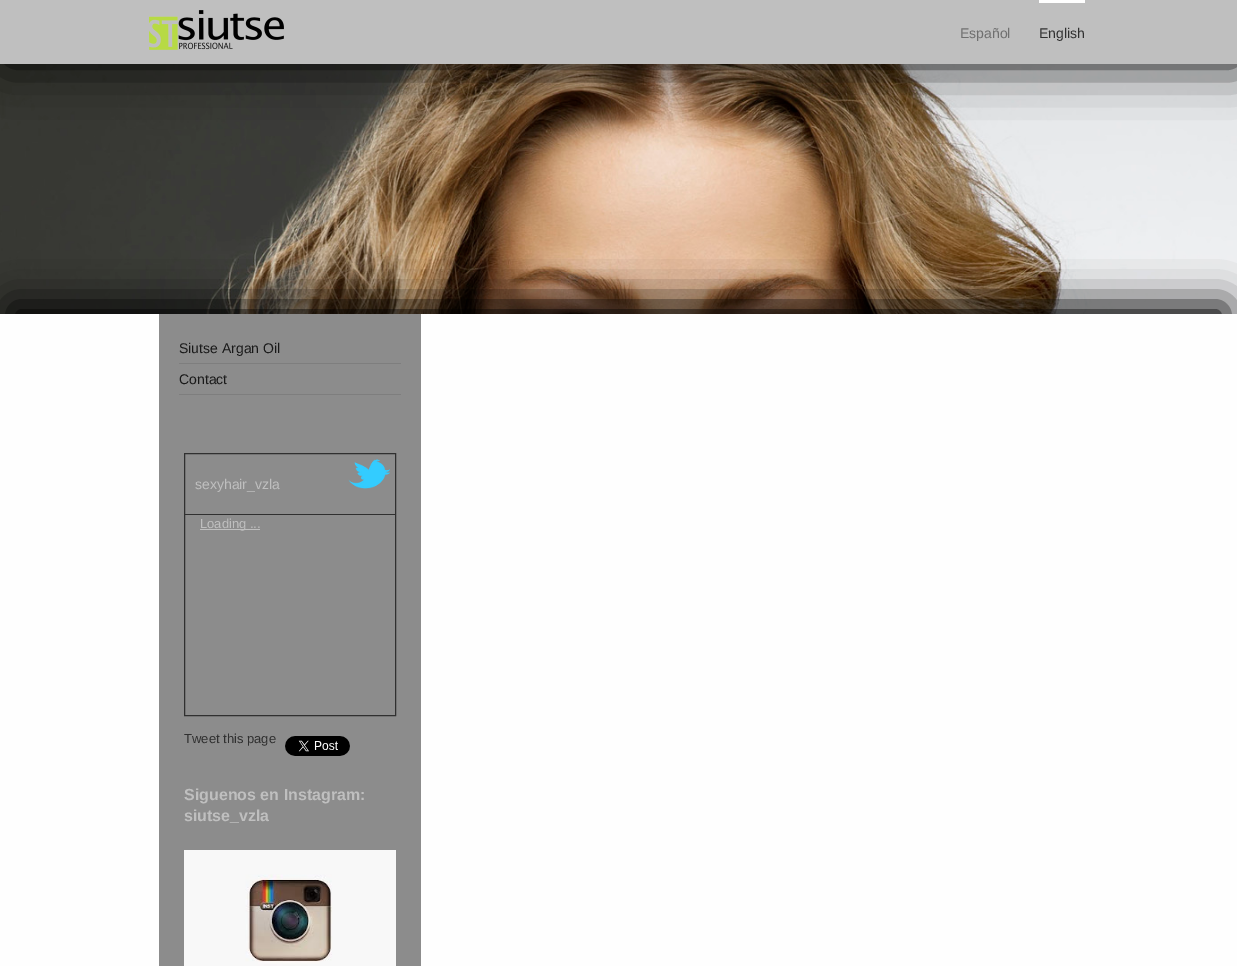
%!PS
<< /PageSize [1237 966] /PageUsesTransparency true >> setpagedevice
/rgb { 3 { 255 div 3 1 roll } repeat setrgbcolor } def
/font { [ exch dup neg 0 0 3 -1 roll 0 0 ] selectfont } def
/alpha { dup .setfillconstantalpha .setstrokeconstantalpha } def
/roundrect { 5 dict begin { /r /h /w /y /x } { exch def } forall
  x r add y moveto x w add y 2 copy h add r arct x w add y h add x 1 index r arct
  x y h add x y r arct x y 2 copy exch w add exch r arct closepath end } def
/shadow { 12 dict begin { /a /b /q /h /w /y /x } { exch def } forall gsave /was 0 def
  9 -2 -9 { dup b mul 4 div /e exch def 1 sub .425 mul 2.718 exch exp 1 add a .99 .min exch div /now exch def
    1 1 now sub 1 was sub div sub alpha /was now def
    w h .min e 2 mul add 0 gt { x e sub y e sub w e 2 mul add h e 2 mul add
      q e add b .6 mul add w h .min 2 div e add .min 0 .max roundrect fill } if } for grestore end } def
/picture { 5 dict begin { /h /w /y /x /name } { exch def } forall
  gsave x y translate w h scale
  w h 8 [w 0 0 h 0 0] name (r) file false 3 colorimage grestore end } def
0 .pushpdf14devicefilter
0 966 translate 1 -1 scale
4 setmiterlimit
255 255 255 rgb
0 0 1237 966 rectfill
(img/1.rgb) 0 64 1237 250 picture
0 0 0 rgb
4 0 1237 64 0 25 1 shadow
191 191 191 rgb
0 0 1237 64 rectfill
(img/2.rgb) 149 10 135 40 picture
254 254 254 rgb
1039 0 46 3 rectfill
0 0 0 rgb
10 304 1217 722 0 20 1 shadow
[
  [0 314 1237 652 254 254 254]
  [159 314 262 652 140 140 140]
  [179 363 222 1 126 126 126]
  [179 394 222 1 126 126 126]
] { aload pop rgb rectfill } forall
48 48 48 rgb
184.5 453.5 211 262 rectstroke
(img/3.rgb) 348 459 42 30 picture
185 514 210 1 rectfill
191 191 191 rgb
200 529 60 1 rectfill
(img/4.rgb) 285 736 65 20 picture
(img/5.rgb) 184 850 212 116 picture
/LiberationSans-Regular 14 font
111 111 111 rgb
960 38 moveto (Español) show
48 48 48 rgb
1039 38 moveto (English) show
25 25 25 rgb
179 353 moveto (Siutse Argan Oil) show
179 384 moveto (Contact) show
191 191 191 rgb
195 489 moveto (sexyhair_vzla) show
/LiberationSans-Regular 13 font
200 528 moveto (Loading ...) show
48 48 48 rgb
184 743 moveto (Tweet this page) show
/LiberationSans-Bold 16 font
191 191 191 rgb
184 800 moveto (Siguenos en Instagram:) show
184 821 moveto (siutse_vzla) show
.poppdf14devicefilter showpage
